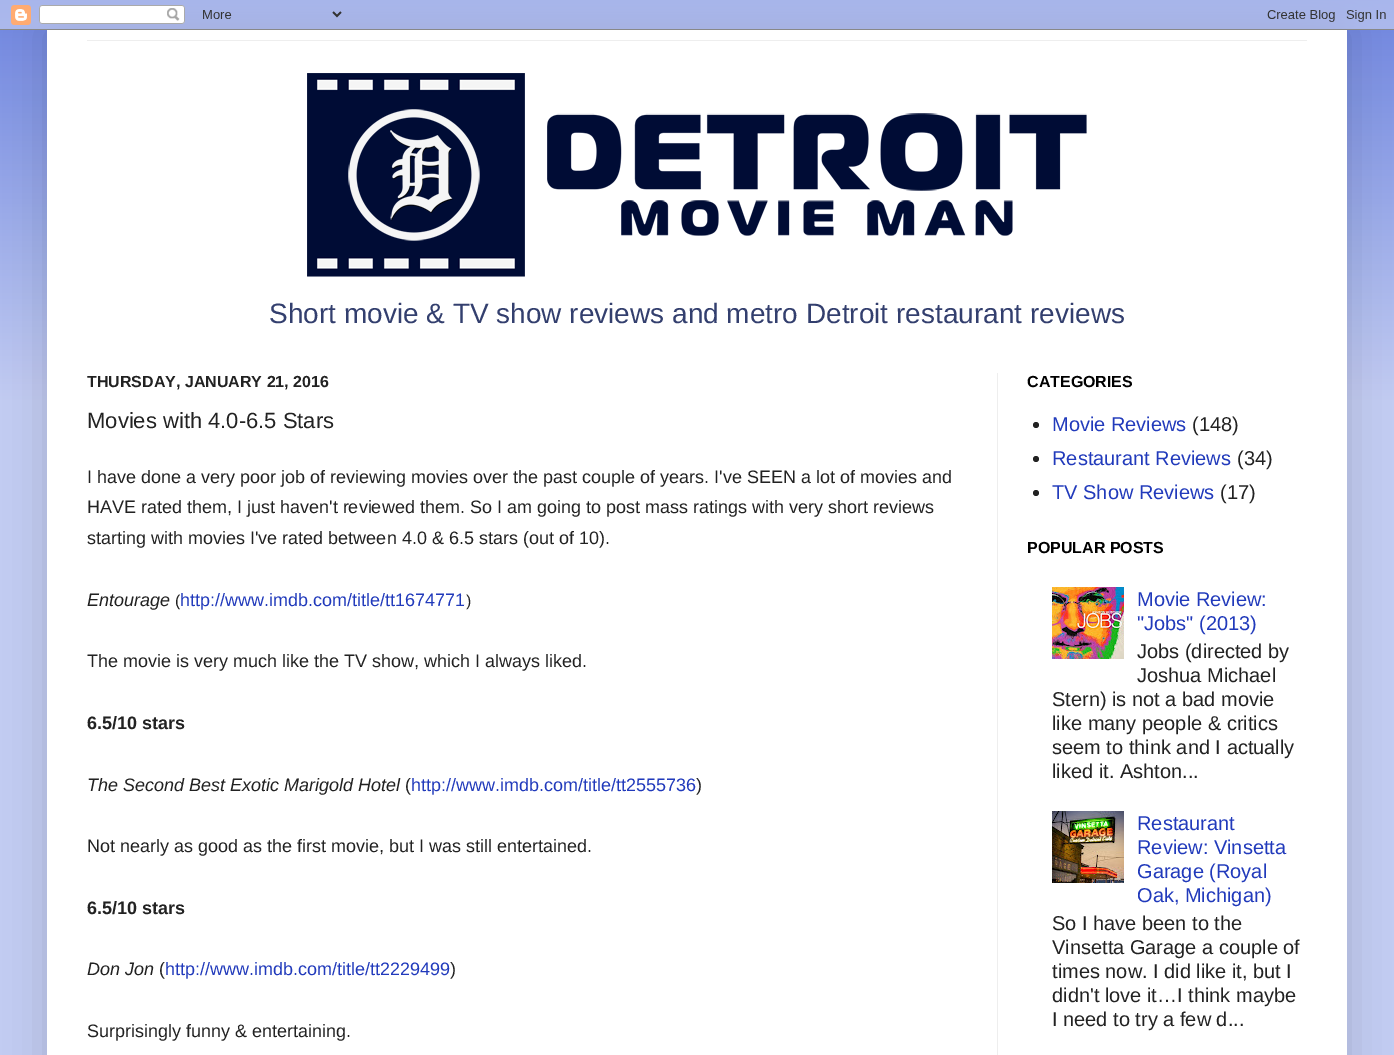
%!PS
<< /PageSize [1394 1055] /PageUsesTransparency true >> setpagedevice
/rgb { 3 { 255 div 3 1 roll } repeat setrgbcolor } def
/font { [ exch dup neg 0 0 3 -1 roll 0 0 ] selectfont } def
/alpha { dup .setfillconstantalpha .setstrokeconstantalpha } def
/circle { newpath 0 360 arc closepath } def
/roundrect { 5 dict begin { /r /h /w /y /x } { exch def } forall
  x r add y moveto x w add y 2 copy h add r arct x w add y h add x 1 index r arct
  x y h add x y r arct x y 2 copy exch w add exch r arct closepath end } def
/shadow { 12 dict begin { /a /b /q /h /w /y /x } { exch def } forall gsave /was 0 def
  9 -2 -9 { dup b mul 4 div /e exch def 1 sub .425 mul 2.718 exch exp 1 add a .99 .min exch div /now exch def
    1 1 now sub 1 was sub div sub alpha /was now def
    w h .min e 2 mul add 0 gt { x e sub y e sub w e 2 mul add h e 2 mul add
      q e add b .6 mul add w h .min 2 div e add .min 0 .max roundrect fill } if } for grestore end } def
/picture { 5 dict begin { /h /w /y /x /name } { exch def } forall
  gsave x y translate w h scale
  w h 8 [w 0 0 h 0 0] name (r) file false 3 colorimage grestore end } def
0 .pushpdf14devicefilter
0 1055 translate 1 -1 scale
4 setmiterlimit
194 204 242 rgb
0 0 1394 1055 rectfill
102 126 221 rgb
0 0 1394 400 rectfill
(img/1.rgb) 0 0 1394 400 picture
0 0 0 rgb
47 30 1300 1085 0 20 0.15 shadow
(img/2.rgb) 0 0 1394 30 picture
255 255 255 rgb
47 30 1300 1025 rectfill
238 238 238 rgb
87 40 1220 1 rectfill
(img/3.rgb) 307 73 780 204 picture
997 373 1 682 rectfill
34 34 34 rgb
1036 425 3 circle fill
1036 459 3 circle fill
1036 493 3 circle fill
(img/4.rgb) 1052 587 72 72 picture
(img/5.rgb) 1052 811 72 72 picture
/LiberationSans-Regular 28 font
51 63 110 rgb
269 323 moveto (Short movie & TV show reviews and metro Detroit restaurant reviews) show
/LiberationSans-Bold 16 font
34 34 34 rgb
87 387 moveto (THURSDAY, JANUARY 21, 2016) show
/LiberationSans-Regular 22 font
87 428 moveto (Movies with 4.0-6.5 Stars) show
/LiberationSans-Regular 18 font
[
  [(I have done a very poor job of reviewing movies over the past couple of years. I've SEEN a lot of movies and) 87 483]
  [(HAVE rated them, I just haven't reviewed them. So I am going to post mass ratings with very short reviews) 87 513]
  [(starting with movies I've rated between 4.0 & 6.5 stars \(out of 10\).) 87 544]
] { aload pop moveto show } forall
/LiberationSans-Italic 18 font
87 606 moveto (Entourage) show
/LiberationSans-Regular 16 font
175 606 moveto (\() show
/LiberationSans-Regular 18 font
33 58 187 rgb
180 606 moveto (http://www.imdb.com/title/tt1674771) show
/LiberationSans-Regular 16 font
34 34 34 rgb
466 606 moveto (\)) show
/LiberationSans-Regular 18 font
87 667 moveto (The movie is very much like the TV show, which I always liked.) show
/LiberationSans-Bold 18 font
87 729 moveto (6.5/10 stars) show
/LiberationSans-Italic 18 font
87 791 moveto (The Second Best Exotic Marigold Hotel) show
/LiberationSans-Regular 18 font
405 791 moveto (\() show
33 58 187 rgb
411 791 moveto (http://www.imdb.com/title/tt2555736) show
34 34 34 rgb
696 791 moveto (\)) show
87 852 moveto (Not nearly as good as the first movie, but I was still entertained.) show
/LiberationSans-Bold 18 font
87 914 moveto (6.5/10 stars) show
/LiberationSans-Italic 18 font
87 975 moveto (Don Jon) show
/LiberationSans-Regular 18 font
159 975 moveto (\() show
33 58 187 rgb
165 975 moveto (http://www.imdb.com/title/tt2229499) show
34 34 34 rgb
450 975 moveto (\)) show
87 1037 moveto (Surprisingly funny & entertaining.) show
/LiberationSans-Bold 16 font
0 0 0 rgb
1027 387 moveto (CATEGORIES) show
/LiberationSans-Regular 20 font
33 58 187 rgb
1052 431 moveto (Movie Reviews) show
34 34 34 rgb
1192 431 moveto (\(148\)) show
33 58 187 rgb
1052 465 moveto (Restaurant Reviews) show
34 34 34 rgb
1237 465 moveto (\(34\)) show
33 58 187 rgb
1052 499 moveto (TV Show Reviews) show
34 34 34 rgb
1220 499 moveto (\(17\)) show
/LiberationSans-Bold 16 font
0 0 0 rgb
1027 553 moveto (POPULAR POSTS) show
/LiberationSans-Regular 20 font
33 58 187 rgb
1137 606 moveto (Movie Review:) show
1137 630 moveto ("Jobs" \(2013\)) show
34 34 34 rgb
[
  [(Jobs \(directed by) 1137 658]
  [(Joshua Michael) 1137 682]
  [(Stern\) is not a bad movie) 1052 706]
  [(like many people & critics) 1052 730]
  [(seem to think and I actually) 1052 754]
  [(liked it. Ashton...) 1052 778]
] { aload pop moveto show } forall
33 58 187 rgb
[
  [(Restaurant) 1137 830]
  [(Review: Vinsetta) 1137 854]
  [(Garage \(Royal) 1137 878]
  [(Oak, Michigan\)) 1137 902]
] { aload pop moveto show } forall
34 34 34 rgb
[
  [(So I have been to the) 1052 930]
  [(Vinsetta Garage a couple of) 1052 954]
  [(times now. I did like it, but I) 1052 978]
  [(didn't love it…I think maybe) 1052 1002]
  [(I need to try a few d...) 1052 1026]
] { aload pop moveto show } forall
.poppdf14devicefilter showpage
